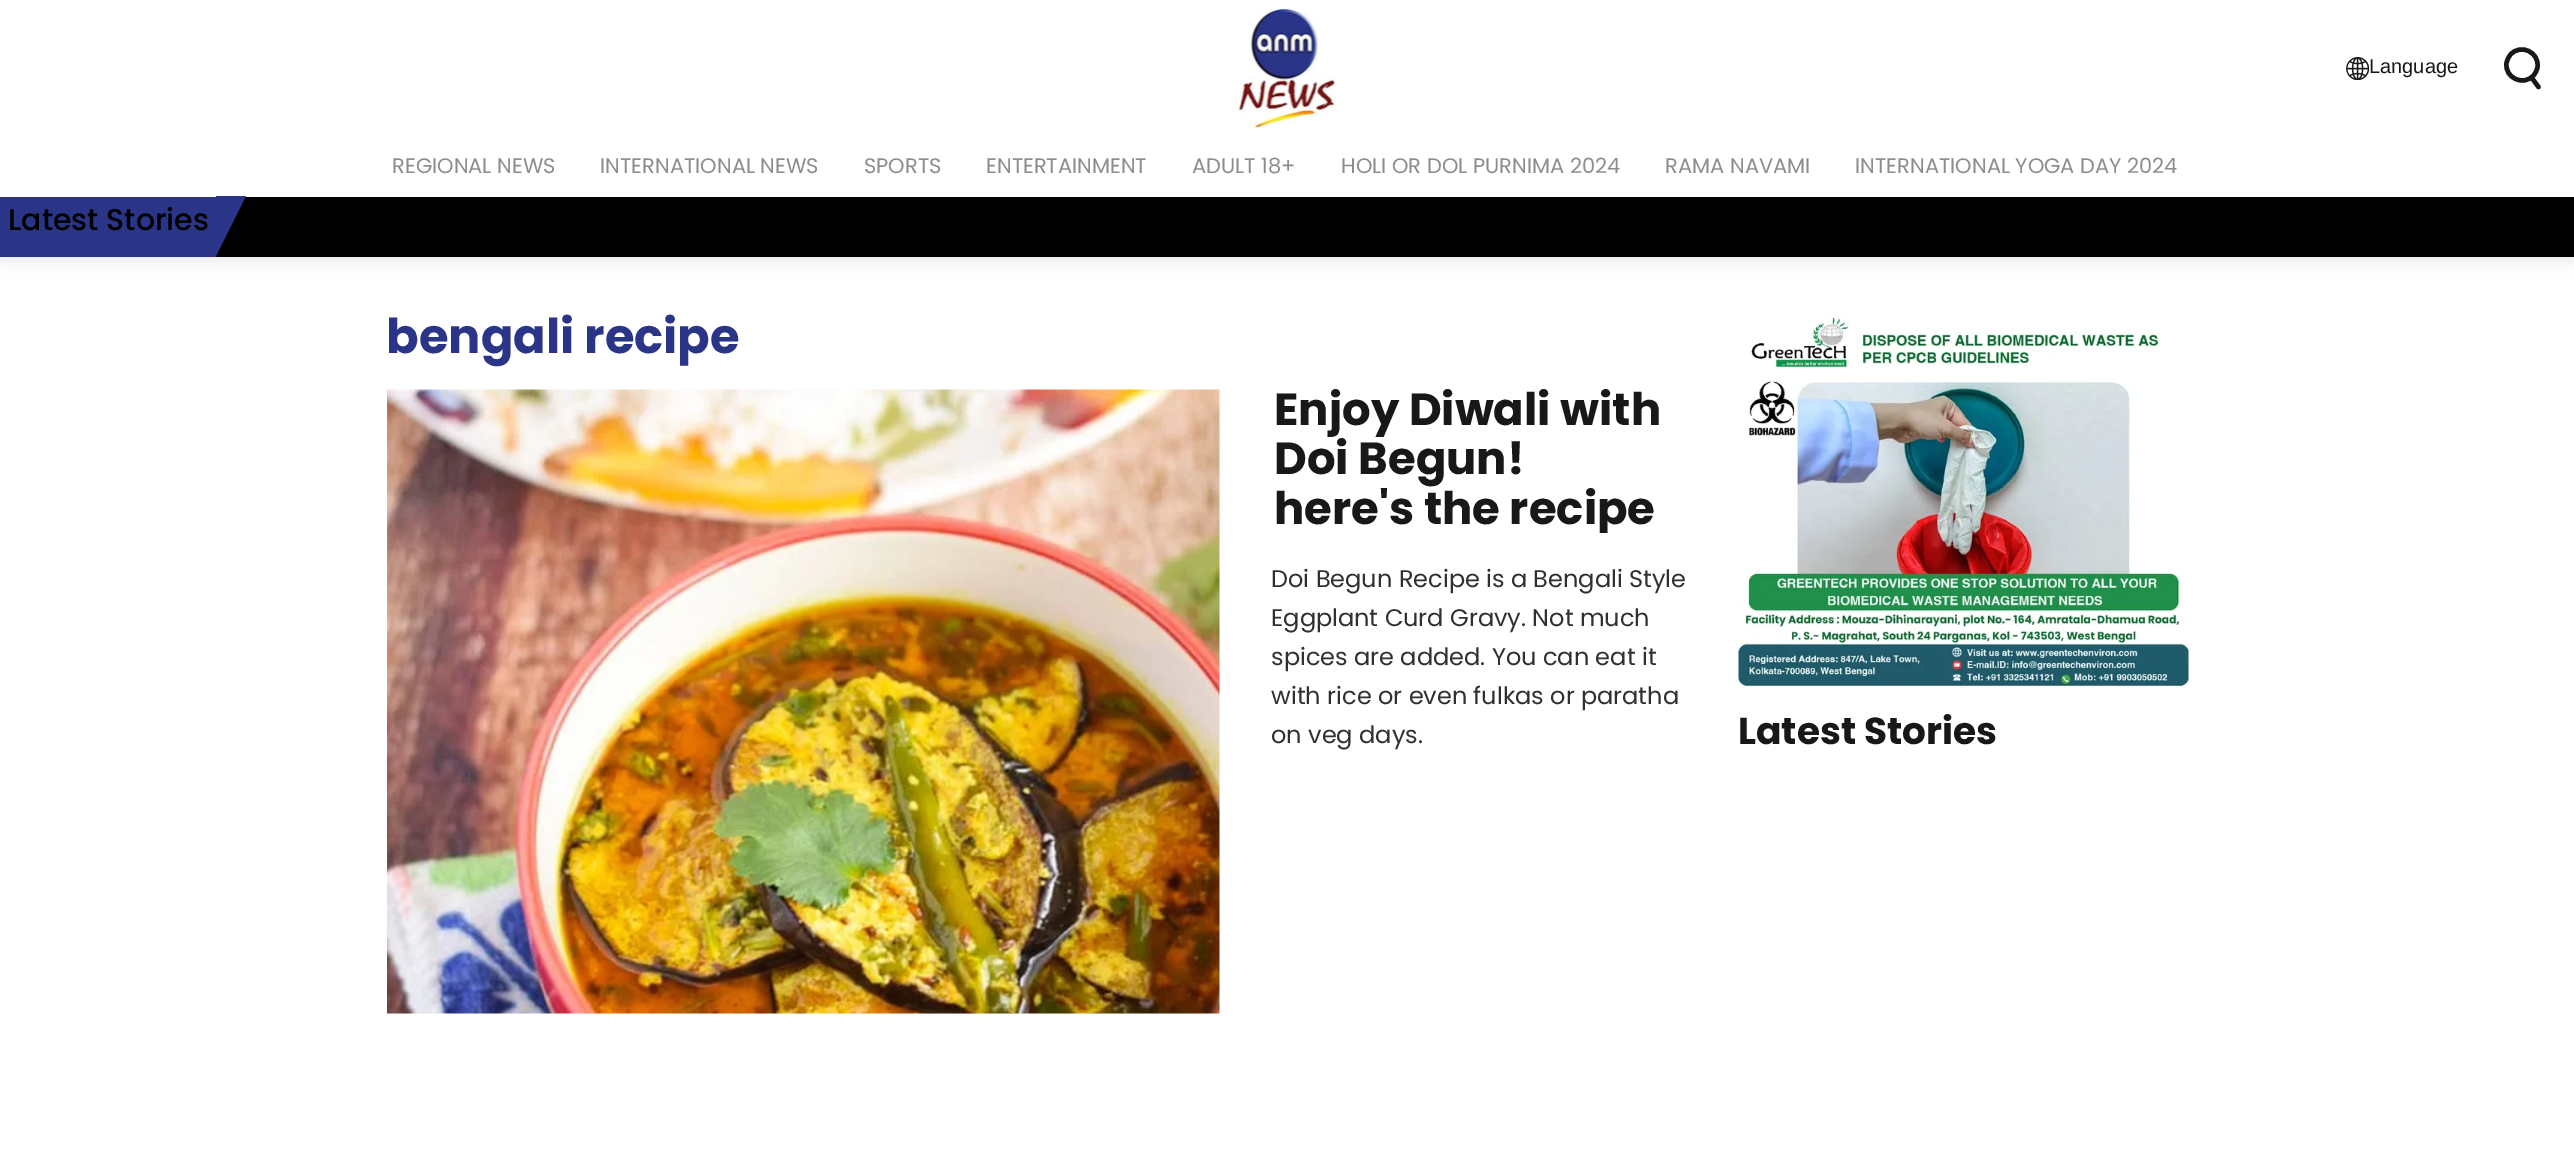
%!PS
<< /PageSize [2574 1171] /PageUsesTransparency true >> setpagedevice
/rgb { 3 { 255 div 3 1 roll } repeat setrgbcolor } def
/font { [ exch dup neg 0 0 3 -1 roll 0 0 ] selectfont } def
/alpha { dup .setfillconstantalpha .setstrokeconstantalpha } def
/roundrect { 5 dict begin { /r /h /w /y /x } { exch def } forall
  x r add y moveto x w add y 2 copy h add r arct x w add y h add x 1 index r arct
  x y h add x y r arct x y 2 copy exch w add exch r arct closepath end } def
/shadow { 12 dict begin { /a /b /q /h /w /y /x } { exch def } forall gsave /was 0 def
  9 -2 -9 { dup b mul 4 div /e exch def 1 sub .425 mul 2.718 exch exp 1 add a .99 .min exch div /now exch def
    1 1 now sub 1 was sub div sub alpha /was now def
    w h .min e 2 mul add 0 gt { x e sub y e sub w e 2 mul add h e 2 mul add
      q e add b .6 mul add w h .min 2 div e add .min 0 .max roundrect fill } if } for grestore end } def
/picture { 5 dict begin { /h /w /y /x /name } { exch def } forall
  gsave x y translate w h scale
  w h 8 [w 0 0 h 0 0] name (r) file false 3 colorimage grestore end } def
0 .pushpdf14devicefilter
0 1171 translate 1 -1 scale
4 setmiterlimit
255 255 255 rgb
0 0 2574 1171 rectfill
0 0 0 rgb
0 3 2574 257 0 7.5 0.1 shadow
255 255 255 rgb
0 0 2574 197 rectfill
(img/1.rgb) 1238 8 99 121 picture
(img/2.rgb) 2346 57 23 23 picture
24 24 24 rgb
4.5 setlinewidth
1 setlinecap
1 setlinejoin
2537.5 67 moveto 2537 70.5 2535.5 73 2533.5 75.5 curveto 2523.5 86.5 2504.5 78 2506.5 63 curveto 2507 60 2508.5 57 2510.5 54.5 curveto 2521 43 2539.5 52.5 2537.5 67 curveto closepath 2538.5 87 moveto 2531.5 77.5 lineto stroke
42 53 135 rgb
0 197 216 60 rectfill
0 0 0 rgb
216 197 2358 60 rectfill
42 53 135 rgb
216 256 moveto 216 196 lineto 246 196 lineto closepath fill
(img/3.rgb) 387 389 833 625 picture
(img/4.rgb) 1738 316 451 372 picture
/LiberationSans-Regular 20 font
24 24 24 rgb
2369 73 moveto (Language) show
/Poppins-Regular 21 font
141 141 141 rgb
[
  [(REGIONAL NEWS) 392 173]
  [(INTERNATIONAL NEWS) 600 173]
  [(SPORTS) 864 173]
  [(ENTERTAINMENT) 986 173]
  [(ADULT 18+) 1192 173]
  [(HOLI OR DOL PURNIMA 2024) 1341 173]
  [(RAMA NAVAMI) 1665 173]
  [(INTERNATIONAL YOGA DAY 2024) 1855 173]
] { aload pop moveto show } forall
/Poppins-Medium 30 font
0 0 0 rgb
8 230 moveto (Latest Stories) show
/Poppins-Bold 48 font
42 53 135 rgb
386 353 moveto (bengali recipe) show
/Poppins-Bold 45 font
24 24 24 rgb
1274 425 moveto (Enjoy Diwali with) show
1274 474 moveto (Doi Begun!) show
gsave
1275 372 393 161 rectclip
1274 524 moveto (here's the recipe) show
grestore
/Poppins-Regular 24 font
48 48 48 rgb
[
  [(Doi Begun Recipe is a Bengali Style) 1271 587]
  [(Eggplant Curd Gravy. Not much) 1271 626]
  [(spices are added. You can eat it) 1271 665]
  [(with rice or even fulkas or paratha) 1271 704]
  [(on veg days.) 1271 743]
] { aload pop moveto show } forall
/Poppins-Bold 37.5 font
24 24 24 rgb
1738 744 moveto (Latest Stories) show
.poppdf14devicefilter showpage
